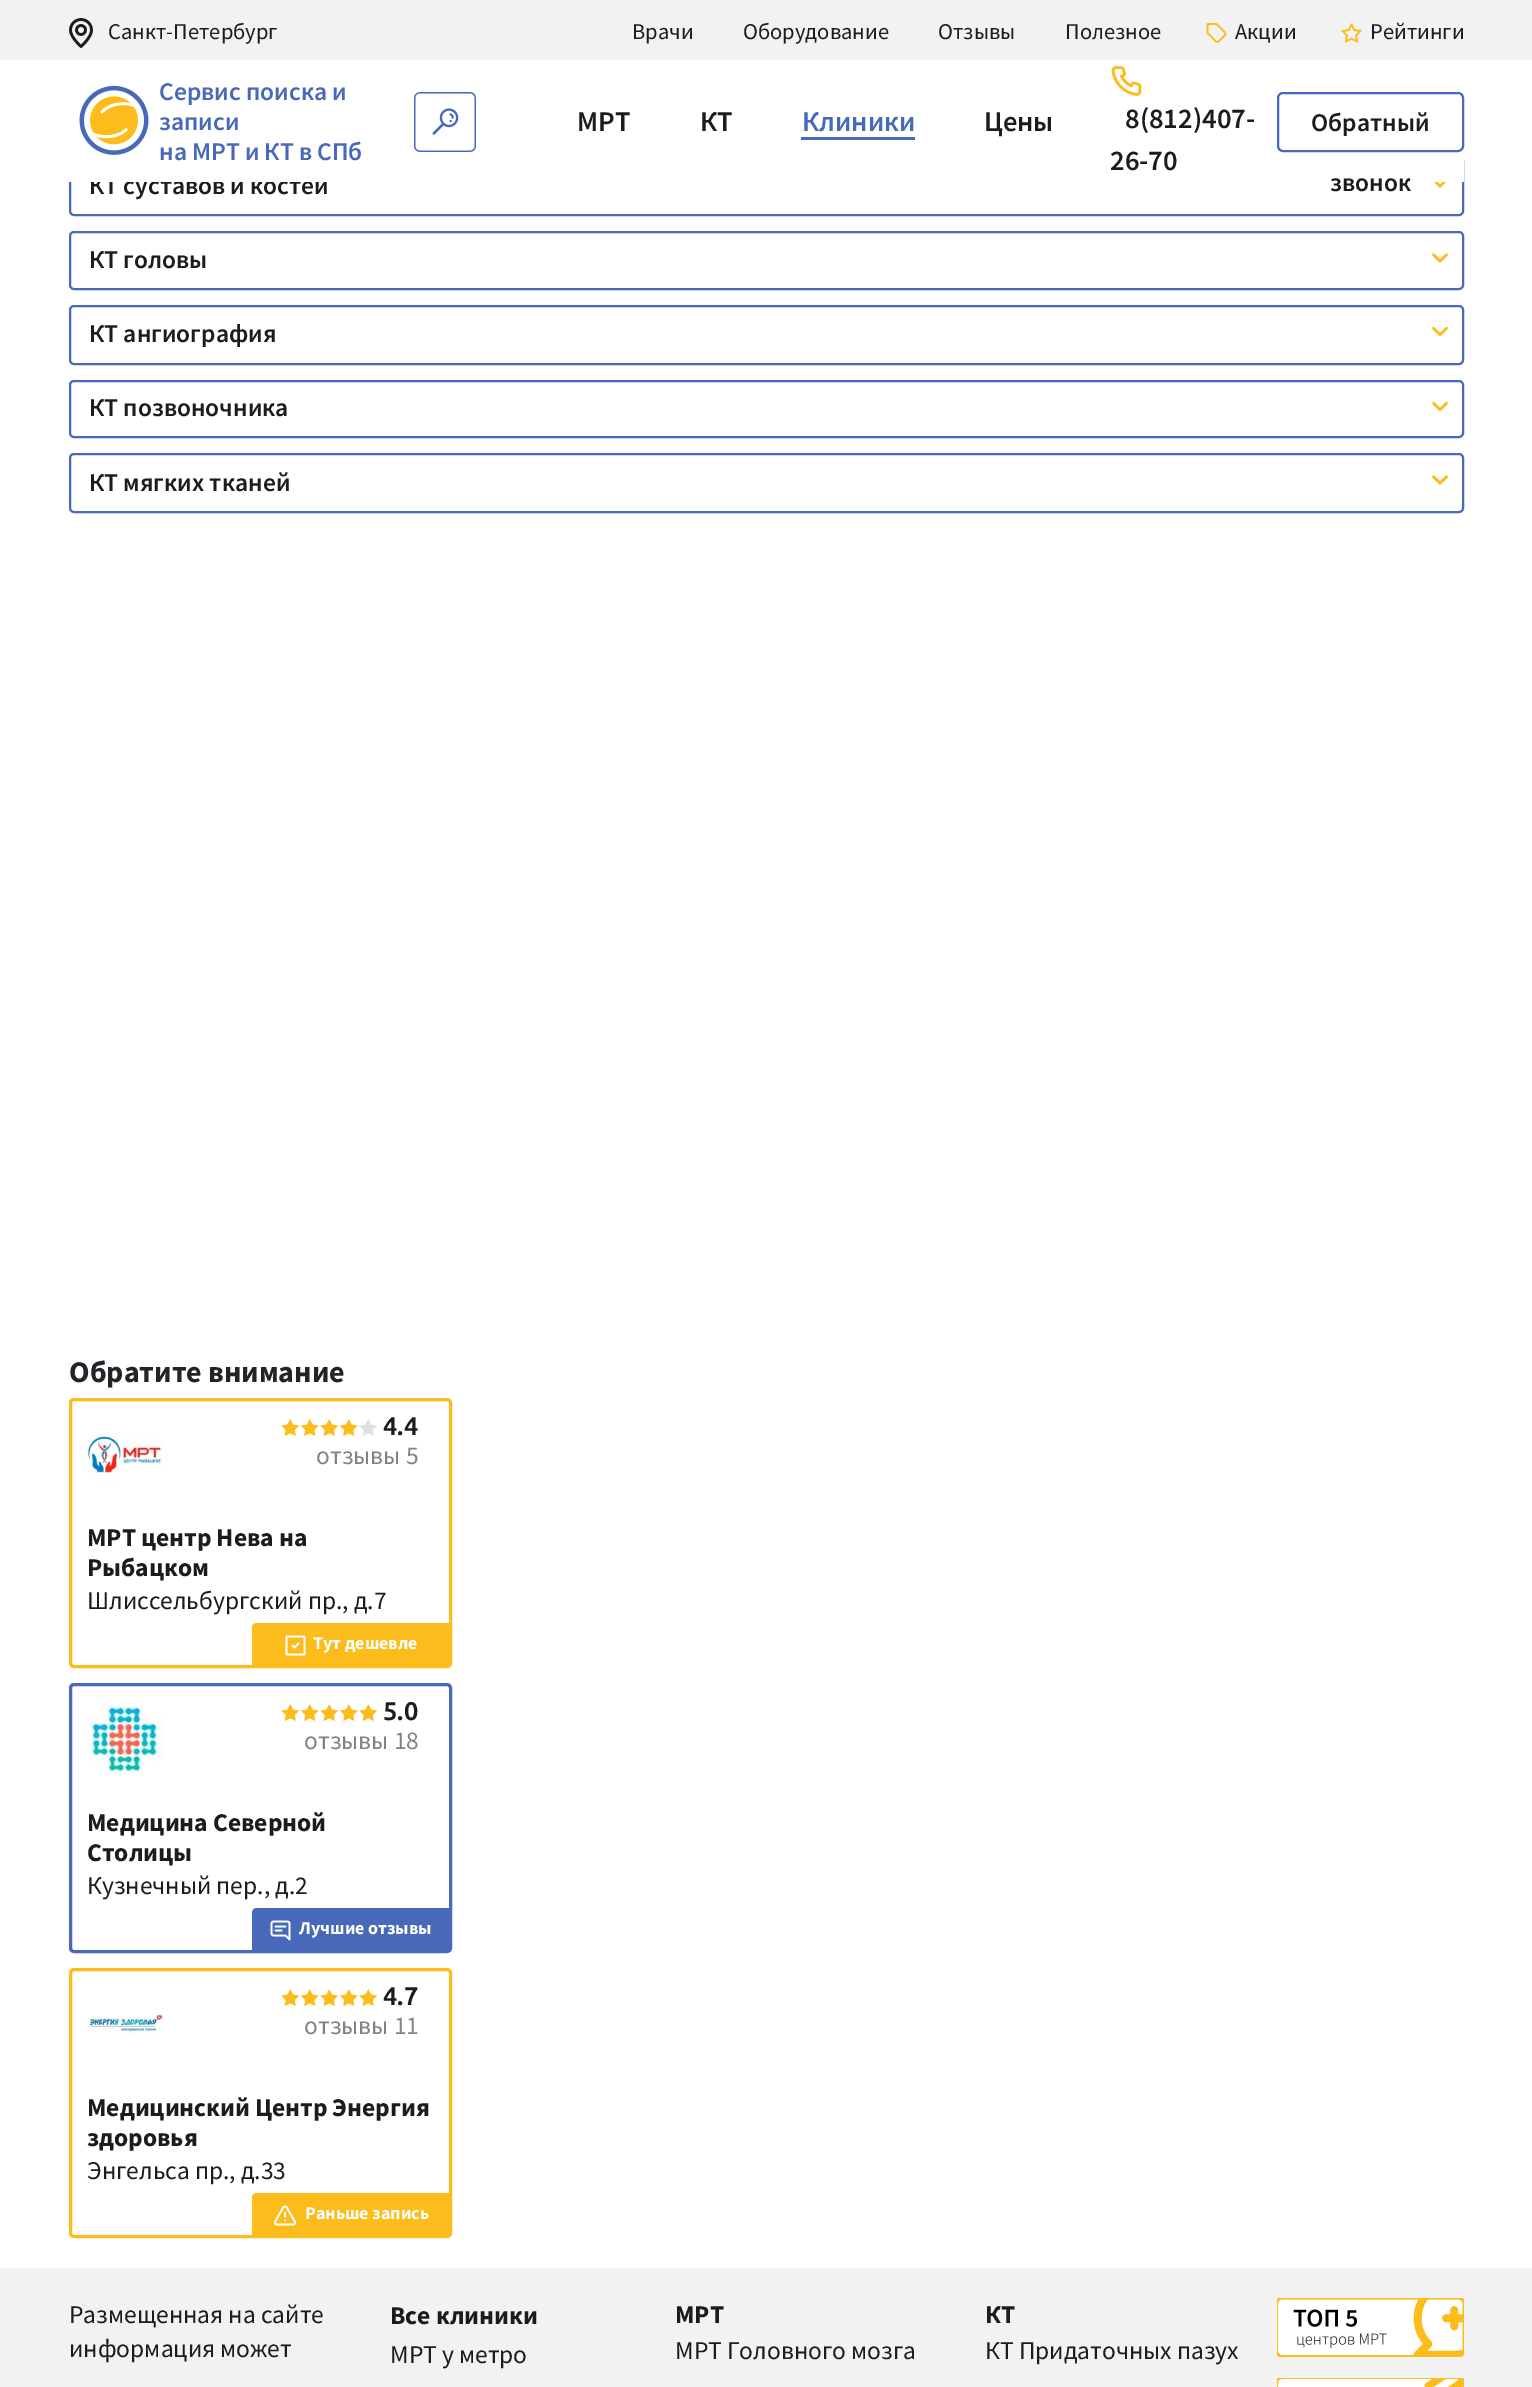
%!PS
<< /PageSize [1532 2387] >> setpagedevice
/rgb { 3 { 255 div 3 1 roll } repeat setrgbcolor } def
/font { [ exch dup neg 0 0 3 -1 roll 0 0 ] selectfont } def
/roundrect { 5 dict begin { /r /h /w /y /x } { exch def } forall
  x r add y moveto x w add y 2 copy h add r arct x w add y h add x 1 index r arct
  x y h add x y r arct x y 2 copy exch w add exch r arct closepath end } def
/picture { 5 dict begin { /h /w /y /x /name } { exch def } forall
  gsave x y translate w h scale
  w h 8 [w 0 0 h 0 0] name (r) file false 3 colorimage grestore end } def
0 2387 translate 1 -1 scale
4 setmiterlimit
255 255 255 rgb
0 0 1532 2387 rectfill
242 242 242 rgb
0 0 1532 60 rectfill
(img/1.rgb) 69 18 24 30 picture
(img/2.rgb) 1206 23 21 20 picture
(img/3.rgb) 1341 23 21 20 picture
(img/4.rgb) 79 85 70 70 picture
(img/5.rgb) 414 92 62 60 picture
72 104 185 rgb
801 137 114 3 rectfill
(img/6.rgb) 1111 66 31 30 picture
2 setlinewidth
1278 93 185 58 5 roundrect stroke
70 157 1393 58 4 roundrect stroke
(img/7.rgb) 1433 182 14 6 picture
70 232 1393 57 4 roundrect stroke
(img/8.rgb) 1432 253 16 10 picture
70 306 1393 58 4 roundrect stroke
(img/9.rgb) 1432 326 16 11 picture
70 381 1393 56 4 roundrect stroke
(img/9.rgb) 1432 401 16 11 picture
70 454 1393 58 4 roundrect stroke
(img/8.rgb) 1432 475 16 10 picture
252 189 28 rgb
3 setlinewidth
70.5 1399.5 380 267 3.5 roundrect stroke
(img/10.rgb) 87 1427 77 55 picture
(img/11.rgb) 281 1419 19 17 picture
(img/12.rgb) 300 1419 19 17 picture
(img/11.rgb) 320 1419 19 17 picture
(img/12.rgb) 339 1419 19 17 picture
(img/13.rgb) 359 1419 18 17 picture
257 1623 moveto 450 1623 lineto 450 1665 lineto 252 1665 lineto 252 1628 lineto 252 1625 254 1623 257 1623 curveto closepath fill
(img/14.rgb) 285 1635 21 21 picture
72 104 185 rgb
70.5 1684.5 380 267 3.5 roundrect stroke
(img/15.rgb) 87 1700 77 75 picture
(img/11.rgb) 281 1704 19 17 picture
(img/12.rgb) 300 1704 19 17 picture
(img/11.rgb) 320 1704 19 17 picture
(img/12.rgb) 339 1704 19 17 picture
(img/11.rgb) 359 1704 19 17 picture
257 1908 moveto 450 1908 lineto 450 1950 lineto 252 1950 lineto 252 1913 lineto 252 1910 254 1908 257 1908 curveto closepath fill
(img/16.rgb) 270 1920 21 21 picture
252 189 28 rgb
70.5 1969.5 380 267 3.5 roundrect stroke
(img/17.rgb) 87 2008 77 30 picture
(img/11.rgb) 281 1989 19 17 picture
(img/12.rgb) 300 1989 19 17 picture
(img/11.rgb) 320 1989 19 17 picture
(img/12.rgb) 339 1989 19 17 picture
(img/11.rgb) 359 1989 19 17 picture
257 2193 moveto 450 2193 lineto 450 2235 lineto 252 2235 lineto 252 2198 lineto 252 2195 254 2193 257 2193 curveto closepath fill
(img/18.rgb) 274 2205 23 21 picture
242 242 242 rgb
0 2268 1532 119 rectfill
(img/19.rgb) 1277 2298 187 59 picture
(img/20.rgb) 1277 2378 187 9 picture
/SourceSansPro-Regular 22.5 font
28 28 28 rgb
[
  [(Санкт-Петербург) 108 39]
  [(Врачи) 632 39]
  [(Оборудование) 743 39]
  [(Отзывы) 938 39]
  [(Полезное) 1065 39]
  [(Акции) 1235 39]
  [(Рейтинги) 1370 39]
] { aload pop moveto show } forall
/SourceSansPro-SemiBold 25.5 font
72 104 185 rgb
159 100 moveto (Сервис поиска и) show
159 130 moveto (записи) show
/SourceSansPro-SemiBold 28.5 font
28 28 28 rgb
577 131 moveto (МРТ) show
700 131 moveto (КТ) show
72 104 185 rgb
802 131 moveto (Клиники) show
28 28 28 rgb
984 131 moveto (Цены) show
1125 128 moveto (8\(812\)407-) show
/SourceSansPro-SemiBold 25.5 font
1311 131 moveto (Обратный) show
89 194 moveto (КТ суставов и костей) show
255 255 255 rgb
69 156 1395 26 rectfill
28 28 28 rgb
1330 191 moveto (звонок) show
/SourceSansPro-SemiBold 28.5 font
1110 170 moveto (26-70) show
/SourceSansPro-SemiBold 25.5 font
72 104 185 rgb
159 160 moveto (на МРТ и КТ в СПб) show
28 28 28 rgb
[
  [(КТ головы) 89 268]
  [(КТ ангиография) 89 342]
  [(КТ позвоночника) 89 416]
  [(КТ мягких тканей) 89 491]
] { aload pop moveto show } forall
/SourceSansPro-Bold 30 font
33 37 41 rgb
69 1382 moveto (Обратите внимание) show
/Ubuntu-Bold 25.5 font
28 28 28 rgb
383 1435 moveto (4.4) show
/SourceSansPro-Regular 25.5 font
130 130 130 rgb
316 1464 moveto (отзывы 5) show
/SourceSansPro-Bold 25.5 font
28 28 28 rgb
87 1546 moveto (МРТ центр Нева на) show
87 1576 moveto (Рыбацком) show
/SourceSansPro-Regular 25.5 font
87 1609 moveto (Шлиссельбургский пр., д.7) show
/SourceSansPro-Bold 18 font
255 255 255 rgb
313 1649 moveto (Тут дешевле) show
/Ubuntu-Bold 25.5 font
28 28 28 rgb
383 1720 moveto (5.0) show
/SourceSansPro-Regular 25.5 font
130 130 130 rgb
304 1749 moveto (отзывы 18) show
/SourceSansPro-Bold 25.5 font
28 28 28 rgb
87 1831 moveto (Медицина Северной) show
87 1861 moveto (Столицы) show
/SourceSansPro-Regular 25.5 font
87 1894 moveto (Кузнечный пер., д.2) show
/SourceSansPro-Bold 18 font
255 255 255 rgb
299 1934 moveto (Лучшие отзывы) show
/Ubuntu-Bold 25.5 font
28 28 28 rgb
383 2005 moveto (4.7) show
/SourceSansPro-Regular 25.5 font
130 130 130 rgb
304 2034 moveto (отзывы 11) show
/SourceSansPro-Bold 25.5 font
28 28 28 rgb
87 2116 moveto (Медицинский Центр Энергия) show
87 2146 moveto (здоровья) show
/SourceSansPro-Regular 25.5 font
87 2179 moveto (Энгельса пр., д.33) show
/SourceSansPro-Bold 18 font
255 255 255 rgb
305 2219 moveto (Раньше запись) show
/SourceSansPro-Regular 25.5 font
28 28 28 rgb
69 2323 moveto (Размещенная на сайте) show
69 2357 moveto (информация может) show
/SourceSansPro-Bold 25.5 font
390 2324 moveto (Все клиники) show
/SourceSansPro-Regular 25.5 font
390 2363 moveto (МРТ у метро) show
/SourceSansPro-Bold 25.5 font
675 2323 moveto (МРТ) show
/SourceSansPro-Regular 25.5 font
675 2359 moveto (МРТ Головного мозга) show
/SourceSansPro-Bold 25.5 font
985 2323 moveto (КТ) show
/SourceSansPro-Regular 25.5 font
985 2359 moveto (КТ Придаточных пазух) show
showpage
